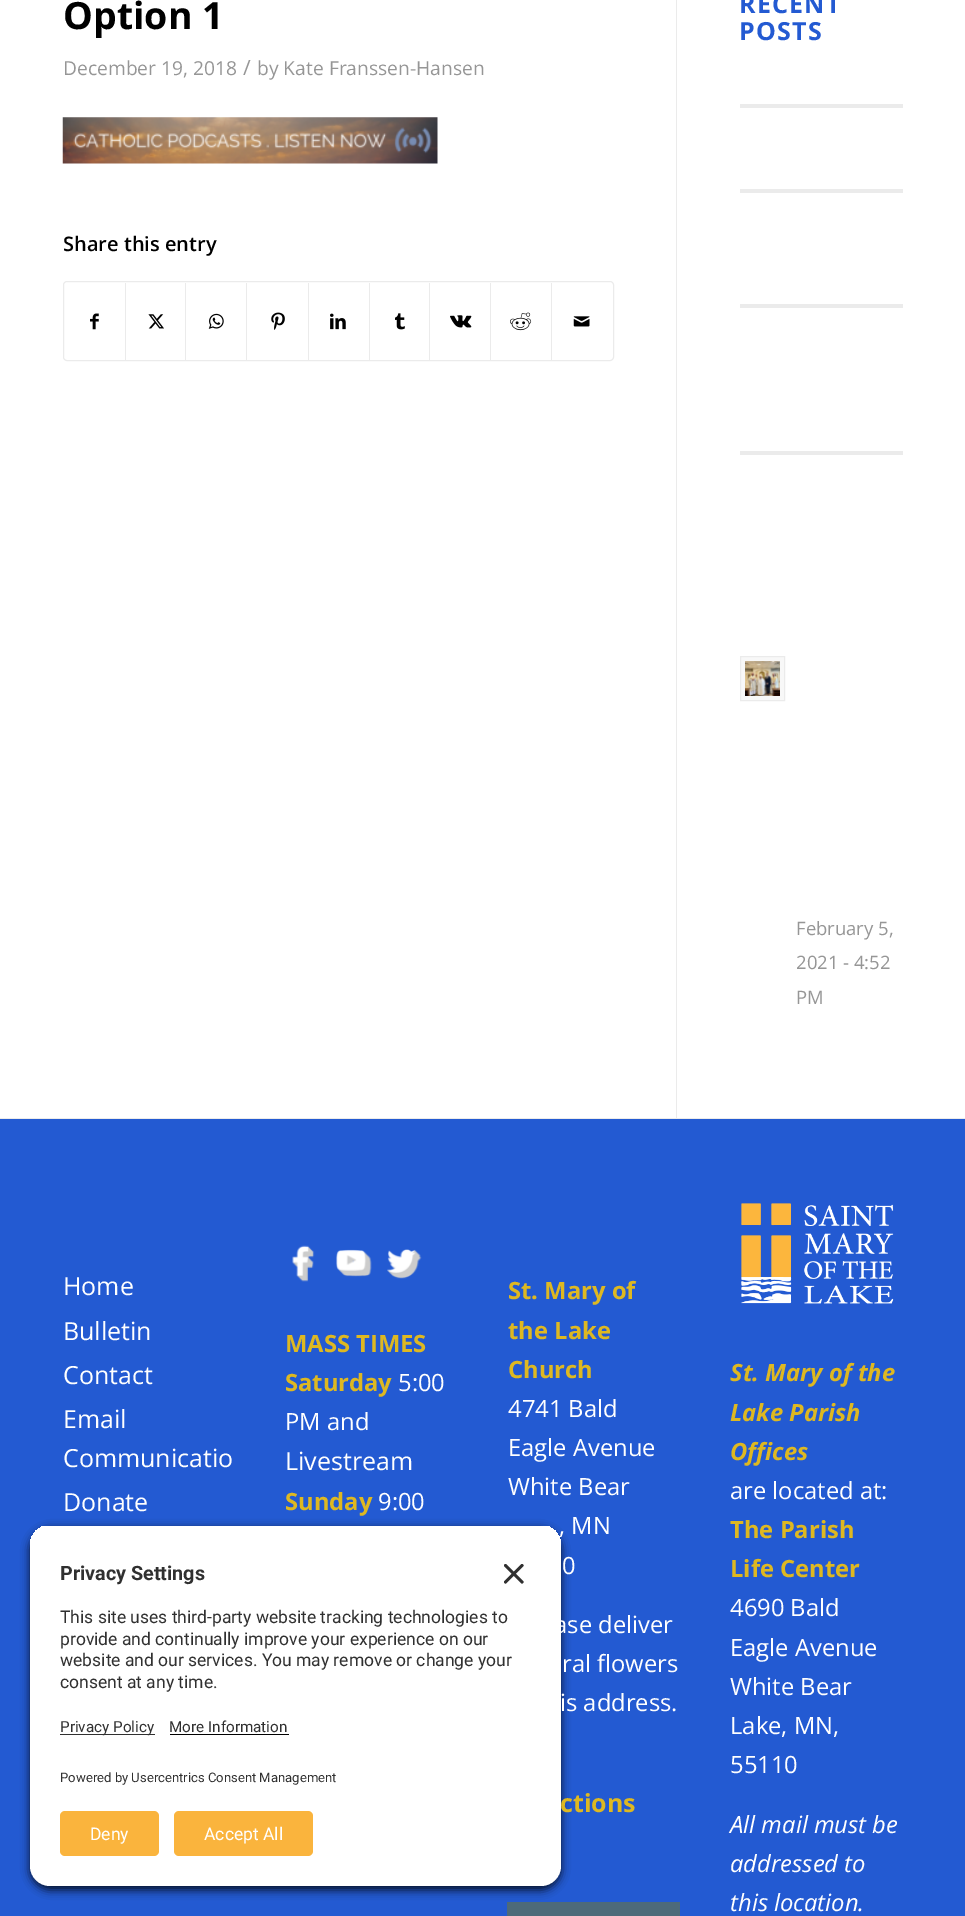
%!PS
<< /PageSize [965 1916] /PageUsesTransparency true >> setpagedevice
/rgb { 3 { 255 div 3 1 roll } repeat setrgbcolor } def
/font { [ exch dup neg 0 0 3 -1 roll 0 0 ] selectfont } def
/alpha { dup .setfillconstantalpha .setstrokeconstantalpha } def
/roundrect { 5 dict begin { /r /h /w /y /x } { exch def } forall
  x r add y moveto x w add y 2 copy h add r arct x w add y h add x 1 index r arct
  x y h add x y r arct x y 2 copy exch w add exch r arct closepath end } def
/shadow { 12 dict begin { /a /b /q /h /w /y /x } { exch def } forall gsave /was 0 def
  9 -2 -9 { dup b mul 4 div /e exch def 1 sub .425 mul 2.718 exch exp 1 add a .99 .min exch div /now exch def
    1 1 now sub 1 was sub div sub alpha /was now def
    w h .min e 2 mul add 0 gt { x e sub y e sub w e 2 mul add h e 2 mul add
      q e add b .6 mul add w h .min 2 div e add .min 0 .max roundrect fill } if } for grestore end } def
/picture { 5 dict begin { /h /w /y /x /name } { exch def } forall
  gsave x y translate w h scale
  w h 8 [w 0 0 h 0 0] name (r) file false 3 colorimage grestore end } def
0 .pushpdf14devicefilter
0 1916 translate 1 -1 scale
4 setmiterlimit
255 255 255 rgb
0 0 965 1916 rectfill
(img/1.rgb) 62 117 376 47 picture
235 235 235 rgb
63.5 281.5 550 79 3.5 roundrect stroke
(img/2.rgb) 90 313 9 17 picture
125 283 1 77 rectfill
(img/3.rgb) 148 314 16 15 picture
185 283 1 77 rectfill
(img/4.rgb) 208 313 16 16 picture
246 283 1 77 rectfill
(img/5.rgb) 271 312 14 18 picture
308 283 1 77 rectfill
(img/6.rgb) 330 313 16 17 picture
369 283 1 77 rectfill
(img/7.rgb) 395 313 10 17 picture
429 283 1 77 rectfill
(img/8.rgb) 450 315 22 13 picture
490 283 1 77 rectfill
(img/9.rgb) 510 312 22 19 picture
551 283 1 77 rectfill
(img/10.rgb) 573 316 17 11 picture
[
  [676 0 1 1118 235 235 235]
  [740 104 163 4 235 235 235]
  [740 189 163 4 235 235 235]
  [740 304 163 4 235 235 235]
  [740 451 163 4 235 235 235]
] { aload pop rgb rectfill } forall
248 248 248 rgb
740.5 656.5 moveto 784.5 656.5 lineto 784.5 700.5 lineto 740.5 700.5 lineto closepath gsave fill grestore
235 235 235 rgb
stroke
(img/11.rgb) 745 661 35 35 picture
35 90 210 rgb
0 1119 965 797 rectfill
235 235 235 rgb
0 1118 965 1 rectfill
(img/12.rgb) 292 1245 23 37 picture
(img/13.rgb) 336 1249 36 28 picture
(img/14.rgb) 387 1249 35 30 picture
77 106 121 rgb
507 1902 173 14 rectfill
(img/15.rgb) 741 1203 153 101 picture
0 0 0 rgb
30 1529 531 361 20 4.5 0.8 shadow
gsave
50 1525 moveto 541 1525 lineto 552 1525 561 1534 561 1545 curveto 561 1699 lineto 30 1699 lineto 30 1545 lineto 30 1534 39 1525 50 1525 curveto closepath clip newpath
255 255 255 rgb
30 1526 531 173 rectfill
grestore
(img/16.rgb) 504 1564 20 20 picture
255 255 255 rgb
30 1699 moveto 561 1699 lineto 561 1866 lineto 561 1877 552 1886 541 1886 curveto 50 1886 lineto 39 1886 30 1877 30 1866 curveto closepath fill
48 48 48 rgb
60 1734 95 1 rectfill
0 0 0 rgb
170 1734 119 1 rectfill
250 180 61 rgb
60 1811 99 45 5 roundrect fill
174 1811 139 45 5 roundrect fill
/OpenSans-Bold 37.5 font
0 0 0 rgb
63 29 moveto (Option 1) show
/OpenSans-Regular 19.25 font
150 150 150 rgb
63 75 moveto (December 19, 2018) show
/OpenSans-Regular 21 font
243 75 moveto (/) show
/OpenSans-Regular 19.25 font
257 75 moveto (by Kate Franssen-Hansen) show
/OpenSans-SemiBold 20 font
0 0 0 rgb
63 251 moveto (Share this entry) show
/OpenSans-Bold 25 font
35 90 210 rgb
739 13 moveto 1.25 0 (RECENT) ashow
739 40 moveto 1.25 0 (POSTS) ashow
/OpenSans-Regular 18.5 font
150 150 150 rgb
[
  [(February 5,) 796 935]
  [(2021 - 4:52) 796 969]
  [(PM) 796 1004]
] { aload pop moveto show } forall
/OpenSans-Regular 25 font
255 255 255 rgb
[
  [(Home) 63 1295]
  [(Bulletin) 63 1340]
  [(Contact) 63 1384]
  [(Email) 63 1428]
  [(Communicatio) 63 1467]
  [(Donate) 63 1511]
] { aload pop moveto show } forall
/OpenSans-Bold 23.75 font
222 184 33 rgb
285 1352 moveto (MASS TIMES) show
285 1391 moveto (Saturday) show
/OpenSans-Regular 23.75 font
255 255 255 rgb
398 1391 moveto (5:00) show
285 1430 moveto (PM and) show
/OpenSans-Regular 25 font
285 1470 moveto (Livestream) show
/OpenSans-Bold 23.75 font
222 184 33 rgb
285 1510 moveto (Sunday) show
/OpenSans-Regular 23.75 font
255 255 255 rgb
378 1510 moveto (9:00) show
/OpenSans-Bold 23.75 font
222 184 33 rgb
[
  [(St. Mary of) 508 1299]
  [(the Lake) 508 1339]
  [(Church) 508 1378]
] { aload pop moveto show } forall
/OpenSans-Regular 23.75 font
255 255 255 rgb
[
  [(4741 Bald) 508 1417]
  [(Eagle Avenue) 508 1456]
  [(White Bear) 508 1495]
  [(, MN) 559 1534]
  [(0) 562 1574]
  [(ase deliver) 554 1633]
  [(ral flowers) 562 1672]
  [(is address.) 560 1711]
] { aload pop moveto show } forall
/OpenSans-Bold 25 font
222 184 33 rgb
560 1812 moveto (ctions) show
/OpenSans-BoldItalic 23.75 font
[
  [(St. Mary of the) 730 1381]
  [(Lake Parish) 730 1421]
  [(Offices) 730 1460]
] { aload pop moveto show } forall
/OpenSans-Regular 23.75 font
255 255 255 rgb
730 1499 moveto (are located at:) show
/OpenSans-Bold 23.75 font
222 184 33 rgb
730 1538 moveto (The Parish) show
730 1577 moveto (Life Center) show
/OpenSans-Regular 23.75 font
255 255 255 rgb
[
  [(4690 Bald) 730 1616]
  [(Eagle Avenue) 730 1656]
  [(White Bear) 730 1695]
  [(Lake, MN,) 730 1734]
  [(55110) 730 1773]
] { aload pop moveto show } forall
/OpenSans-Italic 23.75 font
[
  [(All mail must be) 730 1833]
  [(addressed to) 730 1872]
  [(this location.) 730 1911]
] { aload pop moveto show } forall
/Roboto-Bold 19.75 font
48 48 48 rgb
60 1580 moveto (Privacy Settings) show
/Roboto-Regular 17.5 font
[
  [(This site uses third-party website tracking technologies to) 60 1623]
  [(provide and continually improve your experience on our) 60 1645]
  [(website and our services. You may remove or change your) 60 1666]
  [(consent at any time.) 60 1688]
] { aload pop moveto show } forall
/Roboto-Regular 15.25 font
60 1732 moveto (Privacy Policy) show
169 1732 moveto (More Information) show
/Roboto-Regular 13.1 font
60 1782 moveto (Powered by Usercentrics Consent Management) show
/Roboto-Regular 17.5 font
255 255 255 rgb
90 1840 moveto (Deny) show
204 1840 moveto (Accept All) show
.poppdf14devicefilter showpage
